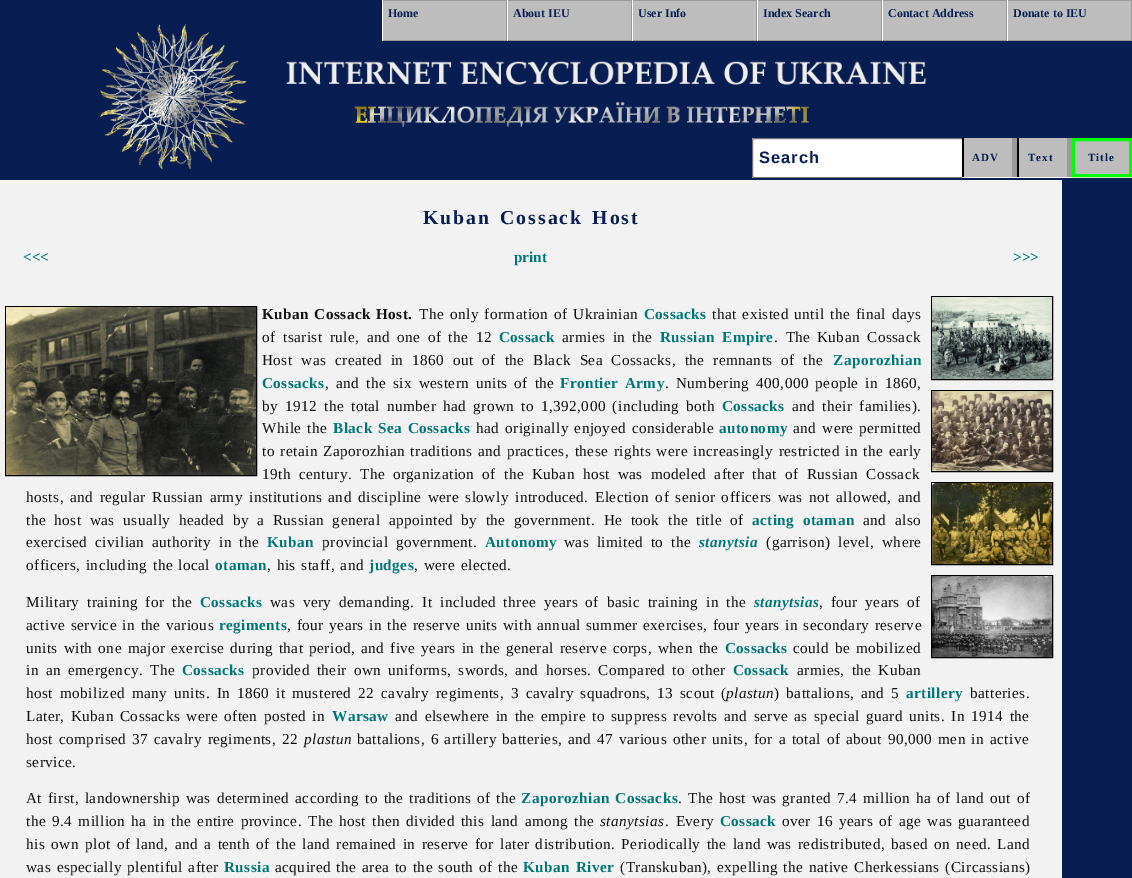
%!PS
<< /PageSize [1132 878] >> setpagedevice
/rgb { 3 { 255 div 3 1 roll } repeat setrgbcolor } def
/font { [ exch dup neg 0 0 3 -1 roll 0 0 ] selectfont } def
/roundrect { 5 dict begin { /r /h /w /y /x } { exch def } forall
  x r add y moveto x w add y 2 copy h add r arct x w add y h add x 1 index r arct
  x y h add x y r arct x y 2 copy exch w add exch r arct closepath end } def
/picture { 5 dict begin { /h /w /y /x /name } { exch def } forall
  gsave x y translate w h scale
  w h 8 [w 0 0 h 0 0] name (r) file false 3 colorimage grestore end } def
0 878 translate 1 -1 scale
4 setmiterlimit
8 29 82 rgb
0 0 1132 878 rectfill
(img/1.rgb) 100 24 827 146 picture
[
  [383 1 123 39 189 189 189]
  [382 0 750 1 154 154 154]
  [506 0 1 41 154 154 154]
  [382 40 125 1 154 154 154]
  [382 0 1 41 255 255 255]
  [508 1 123 39 189 189 189]
  [631 0 1 41 154 154 154]
  [507 40 125 1 154 154 154]
  [507 0 1 41 255 255 255]
  [633 1 123 39 189 189 189]
  [756 0 1 41 154 154 154]
  [632 40 125 1 154 154 154]
  [632 0 1 41 255 255 255]
  [758 1 123 39 189 189 189]
  [881 0 1 41 154 154 154]
  [757 40 125 1 154 154 154]
  [757 0 1 41 255 255 255]
  [883 1 123 39 189 189 189]
  [1006 0 1 41 154 154 154]
  [882 40 125 1 154 154 154]
  [882 0 1 41 255 255 255]
  [1008 1 123 39 189 189 189]
  [1131 0 1 41 154 154 154]
  [1007 40 125 1 154 154 154]
  [1007 0 1 41 255 255 255]
  [752 138 380 40 255 255 255]
  [964 138 48 39 189 189 189]
  [962 138 2 39 0 0 0]
] { aload pop rgb rectfill } forall
gsave
752 138 210 40 rectclip
118 118 118 rgb
752.5 138.5 218 39 1.5 roundrect stroke
grestore
[
  [1012 138 5 39 154 154 154]
  [1019 138 48 39 189 189 189]
  [1067 138 5 39 154 154 154]
  [1017 138 2 39 0 0 0]
] { aload pop rgb rectfill } forall
189 189 189 rgb
1073.5 139.5 moveto 1130.5 139.5 lineto 1130.5 175.5 lineto 1073.5 175.5 lineto closepath gsave fill grestore
0 255 0 rgb
3 setlinewidth
stroke
242 242 242 rgb
0 180 1062 698 rectfill
0 0 0 rgb
1 setlinewidth
931.5 296.5 121 83 rectstroke
(img/2.rgb) 932 297 120 82 picture
931.5 390.5 121 81 rectstroke
(img/3.rgb) 932 391 120 80 picture
931.5 482.5 121 82 rectstroke
(img/4.rgb) 932 483 120 81 picture
931.5 575.5 121 82 rectstroke
(img/5.rgb) 932 576 120 81 picture
5.5 306.5 251 169 rectstroke
(img/6.rgb) 6 307 250 168 picture
/LiberationSerif-Bold 12 font
8 29 82 rgb
[
  [(Home) 388 17]
  [(About IEU) 513 17]
  [(User Info) 638 17]
  [(Index Search) 763 17]
  [(Contact Address) 888 17]
  [(Donate to IEU) 1013 17]
] { aload pop moveto show } forall
/LiberationSans-Bold 16.5 font
759 163 moveto 1 0 (Search) ashow
/LiberationSerif-Bold 11 font
972 161 moveto 1 0 (ADV) ashow
1028 161 moveto 1 0 (Text) ashow
1088 161 moveto 1 0 (Title) ashow
/LiberationSerif-Bold 19.75 font
423 224 moveto 2 0 32 2 0 (Kuban Cossack Host) awidthshow
/LiberationSerif-Bold 15.2 font
2 119 119 rgb
[
  [(<<<) 23 262]
  [(print) 514 262]
  [(>>>) 1013 262]
] { aload pop moveto show } forall
17 17 17 rgb
262 319 moveto 1 0 32 0.46 0 (Kuban Cossack Host.) awidthshow
/LiberationSerif-Regular 15.2 font
419 319 moveto 1.5 0 32 0.46 0 (The only formation of Ukrainian) awidthshow
/LiberationSerif-Bold 15.2 font
2 119 119 rgb
644 319 moveto 0.46 0 (Cossacks) ashow
/LiberationSerif-Regular 15.2 font
17 17 17 rgb
712 319 moveto 1.5 0 32 0.46 0 (that existed until the final days) awidthshow
262 342 moveto 3 0 32 0.46 0 (of tsarist rule, and one of the 12) awidthshow
/LiberationSerif-Bold 15.2 font
2 119 119 rgb
499 342 moveto 0.46 0 (Cossack) ashow
/LiberationSerif-Regular 15.2 font
17 17 17 rgb
562 342 moveto 3 0 32 0.46 0 (armies in the) awidthshow
/LiberationSerif-Bold 15.2 font
2 119 119 rgb
660 342 moveto 3 0 32 0.46 0 (Russian Empire) awidthshow
/LiberationSerif-Regular 15.2 font
17 17 17 rgb
774 342 moveto 3 0 32 0.46 0 (. The) awidthshow
817 342 moveto 0.46 0 (Kuban) ashow
867 342 moveto 0.46 0 (Cossack) ashow
262 365 moveto 4.4 0 32 0.46 0 (Host was created in 1860 out of the Black Sea Cossacks, the remnants of the) awidthshow
/LiberationSerif-Bold 15.2 font
2 119 119 rgb
833 365 moveto 0.46 0 (Zaporozhian) ashow
262 388 moveto 0.46 0 (Cossacks) ashow
/LiberationSerif-Regular 15.2 font
17 17 17 rgb
325 388 moveto 2.5 0 32 0.46 0 (, and the six western units of the) awidthshow
/LiberationSerif-Bold 15.2 font
2 119 119 rgb
560 388 moveto 2 0 32 0.46 0 (Frontier Army) awidthshow
/LiberationSerif-Regular 15.2 font
17 17 17 rgb
665 388 moveto 2.5 0 32 0.46 0 (. Numbering 400,000 people in 1860,) awidthshow
262 411 moveto 2.6 0 32 0.46 0 (by 1912 the total number had grown to 1,392,000 \(including both) awidthshow
/LiberationSerif-Bold 15.2 font
2 119 119 rgb
722 411 moveto 0.46 0 (Cossacks) ashow
/LiberationSerif-Regular 15.2 font
17 17 17 rgb
792 411 moveto 2.6 0 32 0.46 0 (and their families\).) awidthshow
262 433 moveto 1.25 0 32 0.46 0 (While the) awidthshow
/LiberationSerif-Bold 15.2 font
2 119 119 rgb
333 433 moveto 1.25 0 32 0.46 0 (Black Sea Cossacks) awidthshow
/LiberationSerif-Regular 15.2 font
17 17 17 rgb
476 433 moveto 1.5 0 32 0.46 0 (had originally enjoyed considerable) awidthshow
/LiberationSerif-Bold 15.2 font
2 119 119 rgb
719 433 moveto 0.46 0 (autonomy) ashow
/LiberationSerif-Regular 15.2 font
17 17 17 rgb
793 433 moveto 1.5 0 32 0.46 0 (and were permitted) awidthshow
262 456 moveto 1.25 0 32 0.46 0 (to retain Zaporozhian traditions and practices, these rights were increasingly restricted in the early) awidthshow
262 479 moveto 3.75 0 32 0.46 0 (19th century. The organization of the Kuban host was modeled after that of Russian Cossack) awidthshow
26 502 moveto 2 0 32 0.46 0 (hosts, and regular Russian army institutions and discipline were slowly introduced. Election of senior officers was not allowed, and) awidthshow
26 525 moveto 4.1 0 32 0.46 0 (the host was usually headed by a Russian general appointed by the government. He took the title of) awidthshow
/LiberationSerif-Bold 15.2 font
2 119 119 rgb
752 525 moveto 4.1 0 32 0.46 0 (acting otaman) awidthshow
/LiberationSerif-Regular 15.2 font
17 17 17 rgb
863 525 moveto 4.1 0 32 0.46 0 (and also) awidthshow
26 547 moveto 3.5 0 32 0.46 0 (exercised civilian authority in the) awidthshow
/LiberationSerif-Bold 15.2 font
2 119 119 rgb
267 547 moveto 0.46 0 (Kuban) ashow
/LiberationSerif-Regular 15.2 font
17 17 17 rgb
322 547 moveto 3.5 0 32 0.46 0 (provincial government.) awidthshow
/LiberationSerif-Bold 15.2 font
2 119 119 rgb
485 547 moveto 0.46 0 (Autonomy) ashow
/LiberationSerif-Regular 15.2 font
17 17 17 rgb
564 547 moveto 3.5 0 32 0.46 0 (was limited to the) awidthshow
/LiberationSerif-BoldItalic 15.2 font
2 119 119 rgb
699 547 moveto 0.46 0 (stanytsia) ashow
/LiberationSerif-Regular 15.2 font
17 17 17 rgb
766 547 moveto 3.5 0 32 0.46 0 (\(garrison\) level, where) awidthshow
26 570 moveto 1.25 0 32 0.46 0 (officers, including the local) awidthshow
/LiberationSerif-Bold 15.2 font
2 119 119 rgb
215 570 moveto 0.46 0 (otaman) ashow
/LiberationSerif-Regular 15.2 font
17 17 17 rgb
267 570 moveto 1.25 0 32 0.46 0 (, his staff, and) awidthshow
/LiberationSerif-Bold 15.2 font
2 119 119 rgb
369 570 moveto 0.46 0 (judges) ashow
/LiberationSerif-Regular 15.2 font
17 17 17 rgb
414 570 moveto 1.25 0 32 0.46 0 (, were elected.) awidthshow
26 607 moveto 3.25 0 32 0.46 0 (Military training for the) awidthshow
/LiberationSerif-Bold 15.2 font
2 119 119 rgb
200 607 moveto 0.46 0 (Cossacks) ashow
/LiberationSerif-Regular 15.2 font
17 17 17 rgb
270 607 moveto 3.25 0 32 0.46 0 (was very demanding. It included three years of basic training in the) awidthshow
/LiberationSerif-BoldItalic 15.2 font
2 119 119 rgb
754 607 moveto 0.46 0 (stanytsias) ashow
/LiberationSerif-Regular 15.2 font
17 17 17 rgb
819 607 moveto 3.25 0 32 0.46 0 (, four years of) awidthshow
26 630 moveto 1.25 0 32 0.46 0 (active service in the various) awidthshow
/LiberationSerif-Bold 15.2 font
2 119 119 rgb
219 630 moveto 0.46 0 (regiments) ashow
/LiberationSerif-Regular 15.2 font
17 17 17 rgb
287 630 moveto 1.25 0 32 0.46 0 (, four years in the reserve units with annual summer exercises, four years in secondary reserve) awidthshow
26 653 moveto 1.6 0 32 0.46 0 (units with one major exercise during that period, and five years in the general reserve corps, when the) awidthshow
/LiberationSerif-Bold 15.2 font
2 119 119 rgb
725 653 moveto 0.46 0 (Cossacks) ashow
/LiberationSerif-Regular 15.2 font
17 17 17 rgb
793 653 moveto 1.6 0 32 0.46 0 (could be mobilized) awidthshow
26 675 moveto 2.75 0 32 0.46 0 (in an emergency. The) awidthshow
/LiberationSerif-Bold 15.2 font
2 119 119 rgb
182 675 moveto 0.46 0 (Cossacks) ashow
/LiberationSerif-Regular 15.2 font
17 17 17 rgb
252 675 moveto 2.75 0 32 0.46 0 (provided their own uniforms, swords, and horses. Compared to other) awidthshow
/LiberationSerif-Bold 15.2 font
2 119 119 rgb
733 675 moveto 0.46 0 (Cossack) ashow
/LiberationSerif-Regular 15.2 font
17 17 17 rgb
797 675 moveto 2.75 0 32 0.46 0 (armies, the Kuban) awidthshow
26 698 moveto 2.5 0 32 0.46 0 (host mobilized many units. In 1860 it mustered 22 cavalry regiments, 3 cavalry squadrons, 13 scout \() awidthshow
/LiberationSerif-Italic 15.2 font
726 698 moveto 0.46 0 (plastun) ashow
/LiberationSerif-Regular 15.2 font
774 698 moveto 2.5 0 32 0.46 0 (\) battalions, and 5) awidthshow
/LiberationSerif-Bold 15.2 font
2 119 119 rgb
906 698 moveto 0.46 0 (artillery) ashow
/LiberationSerif-Regular 15.2 font
17 17 17 rgb
970 698 moveto 0.46 0 (batteries.) ashow
26 721 moveto 2 0 32 0.46 0 (Later, Kuban Cossacks were often posted in) awidthshow
/LiberationSerif-Bold 15.2 font
2 119 119 rgb
332 721 moveto 0.46 0 (Warsaw) ashow
/LiberationSerif-Regular 15.2 font
17 17 17 rgb
395 721 moveto 2 0 32 0.46 0 (and elsewhere in the empire to suppress revolts and serve as special guard units. In 1914 the) awidthshow
26 744 moveto 1.5 0 32 0.46 0 (host comprised 37 cavalry regiments, 22) awidthshow
/LiberationSerif-Italic 15.2 font
304 744 moveto 0.46 0 (plastun) ashow
/LiberationSerif-Regular 15.2 font
357 744 moveto 1.5 0 32 0.46 0 (battalions, 6 artillery batteries, and 47 various other units, for a total of about 90,000 men in active) awidthshow
26 767 moveto 0.46 0 (service.) ashow
26 803 moveto 1.5 0 32 0.46 0 (At first, landownership was determined according to the traditions of the) awidthshow
/LiberationSerif-Bold 15.2 font
2 119 119 rgb
521 803 moveto 1.25 0 32 0.46 0 (Zaporozhian Cossacks) awidthshow
/LiberationSerif-Regular 15.2 font
17 17 17 rgb
678 803 moveto 1.5 0 32 0.46 0 (. The host was granted 7.4 million ha of land out of) awidthshow
26 826 moveto 1.75 0 32 0.46 0 (the 9.4 million ha in the entire province. The host then divided this land among the) awidthshow
/LiberationSerif-Italic 15.2 font
600 826 moveto 0.46 0 (stanytsias) ashow
/LiberationSerif-Regular 15.2 font
665 826 moveto 2 0 32 0.46 0 (. Every) awidthshow
/LiberationSerif-Bold 15.2 font
2 119 119 rgb
720 826 moveto 0.46 0 (Cossack) ashow
/LiberationSerif-Regular 15.2 font
17 17 17 rgb
782 826 moveto 1.75 0 32 0.46 0 (over 16 years of age was guaranteed) awidthshow
26 849 moveto 1.9 0 32 0.46 0 (his own plot of land, and a tenth of the land remained in reserve for later distribution. Periodically the land was redistributed, based on need. Land) awidthshow
26 872 moveto 1.25 0 32 0.46 0 (was especially plentiful after) awidthshow
/LiberationSerif-Bold 15.2 font
2 119 119 rgb
224 872 moveto 0.46 0 (Russia) ashow
/LiberationSerif-Regular 15.2 font
17 17 17 rgb
275 872 moveto 1.25 0 32 0.46 0 (acquired the area to the south of the) awidthshow
/LiberationSerif-Bold 15.2 font
2 119 119 rgb
523 872 moveto 1.25 0 32 0.46 0 (Kuban River) awidthshow
/LiberationSerif-Regular 15.2 font
17 17 17 rgb
620 872 moveto 1.25 0 32 0.46 0 (\(Transkuban\), expelling the native Cherkessians \(Circassians\)) awidthshow
showpage
